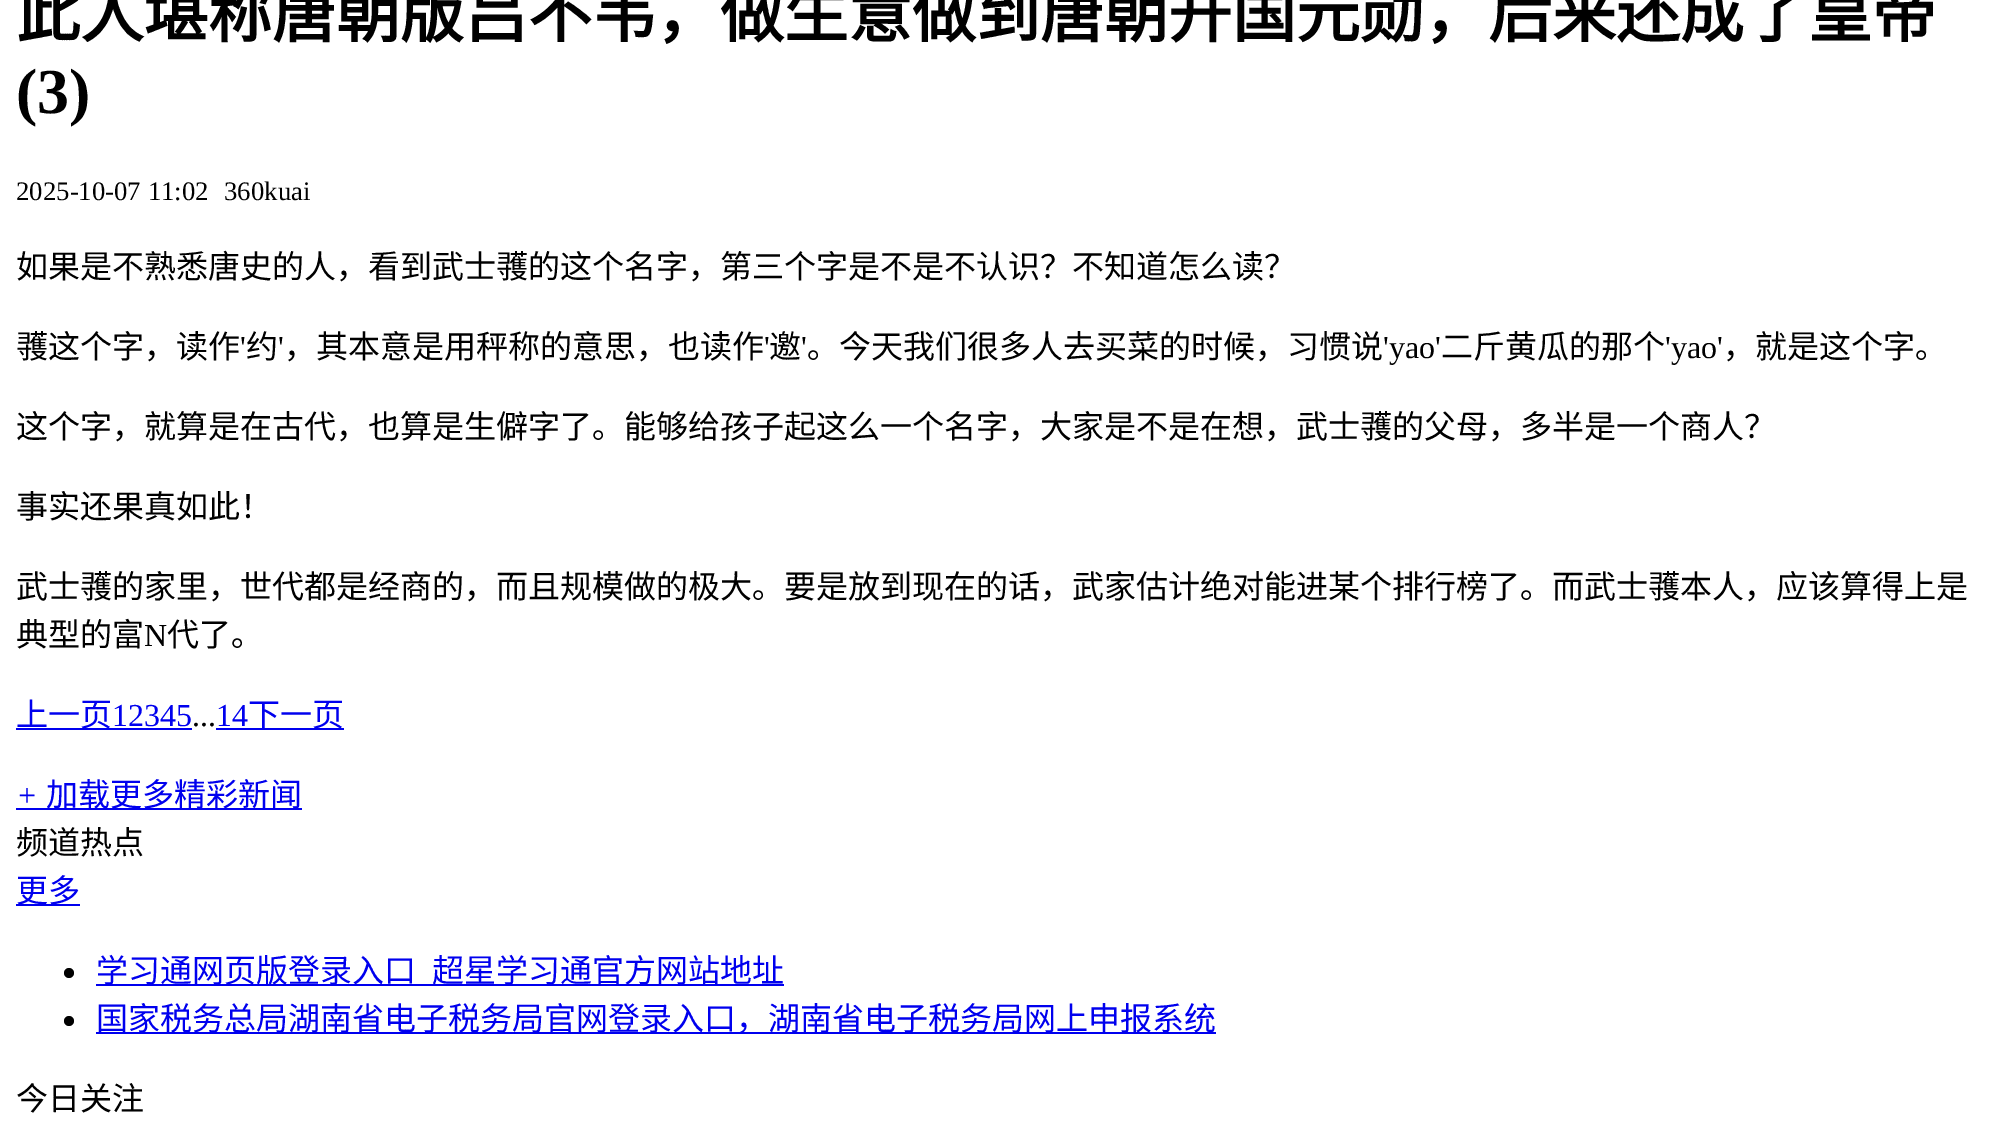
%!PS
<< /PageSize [2003 1123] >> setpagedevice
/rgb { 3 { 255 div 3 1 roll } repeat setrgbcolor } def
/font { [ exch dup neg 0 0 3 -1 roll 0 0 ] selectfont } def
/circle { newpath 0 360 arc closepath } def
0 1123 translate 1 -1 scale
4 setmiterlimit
255 255 255 rgb
0 0 2003 1123 rectfill
[
  [16 728 176 2 0 0 238]
  [216 728 128 2 0 0 238]
  [16 808 286 2 0 0 238]
  [16 904 64 2 0 0 238]
] { aload pop rgb rectfill } forall
0 0 0 rgb
69 973 5 circle fill
0 0 238 rgb
96 984 688 2 rectfill
0 0 0 rgb
69 1021 5 circle fill
0 0 238 rgb
96 1032 1120 2 rectfill
/NotoSansCJKSC-Bold 64 font
0 0 0 rgb
16 37 moveto (此人堪称唐朝版吕不韦，做生意做到唐朝开国元勋，后来还成了皇帝) show
/LiberationSerif-Bold 64 font
16 113 moveto (\(3\)) show
/LiberationSerif-Regular 26.75 font
16 200 moveto (2025-10-07 11:02) show
224 200 moveto (360kuai) show
/NotoSansCJKSC-Regular 32 font
16 278 moveto (如果是不熟悉唐史的人，看到武士彟的这个名字，第三个字是不是不认识？不知道怎么读？) show
16 358 moveto (彟这个字，读作) show
/LiberationSerif-Regular 32 font
240 358 moveto (') show
/NotoSansCJKSC-Regular 32 font
246 358 moveto (约) show
/LiberationSerif-Regular 32 font
278 358 moveto (') show
/NotoSansCJKSC-Regular 32 font
284 358 moveto (，其本意是用秤称的意思，也读作) show
/LiberationSerif-Regular 32 font
764 358 moveto (') show
/NotoSansCJKSC-Regular 32 font
769 358 moveto (邀) show
/LiberationSerif-Regular 32 font
801 358 moveto (') show
/NotoSansCJKSC-Regular 32 font
807 358 moveto (。今天我们很多人去买菜的时候，习惯说) show
/LiberationSerif-Regular 32 font
1383 358 moveto ('yao') show
/NotoSansCJKSC-Regular 32 font
1441 358 moveto (二斤黄瓜的那个) show
/LiberationSerif-Regular 32 font
1665 358 moveto ('yao') show
/NotoSansCJKSC-Regular 32 font
[
  [(，就是这个字。) 1723 358]
  [(这个字，就算是在古代，也算是生僻字了。能够给孩子起这么一个名字，大家是不是在想，武士彟的父母，多半是一个商人？) 16 438]
  [(事实还果真如此！) 16 518]
  [(武士彟的家里，世代都是经商的，而且规模做的极大。要是放到现在的话，武家估计绝对能进某个排行榜了。而武士彟本人，应该算得上是) 16 598]
  [(典型的富) 16 646]
] { aload pop moveto show } forall
/LiberationSerif-Regular 32 font
144 646 moveto (N) show
/NotoSansCJKSC-Regular 32 font
167 646 moveto (代了。) show
0 0 238 rgb
16 726 moveto (上一页) show
/LiberationSerif-Regular 32 font
112 726 moveto (12345) show
0 0 0 rgb
192 726 moveto (...) show
0 0 238 rgb
216 726 moveto (14) show
/NotoSansCJKSC-Regular 32 font
248 726 moveto (下一页) show
/LiberationSerif-Italic 32 font
16 806 moveto (+) show
/NotoSansCJKSC-Regular 32 font
46 806 moveto (加载更多精彩新闻) show
0 0 0 rgb
16 854 moveto (频道热点) show
0 0 238 rgb
[
  [(更多) 16 902]
  [(学习通网页版登录入口) 96 982]
  [(超星学习通官方网站地址) 432 982]
  [(国家税务总局湖南省电子税务局官网登录入口，湖南省电子税务局网上申报系统) 96 1030]
] { aload pop moveto show } forall
0 0 0 rgb
16 1110 moveto (今日关注) show
showpage
